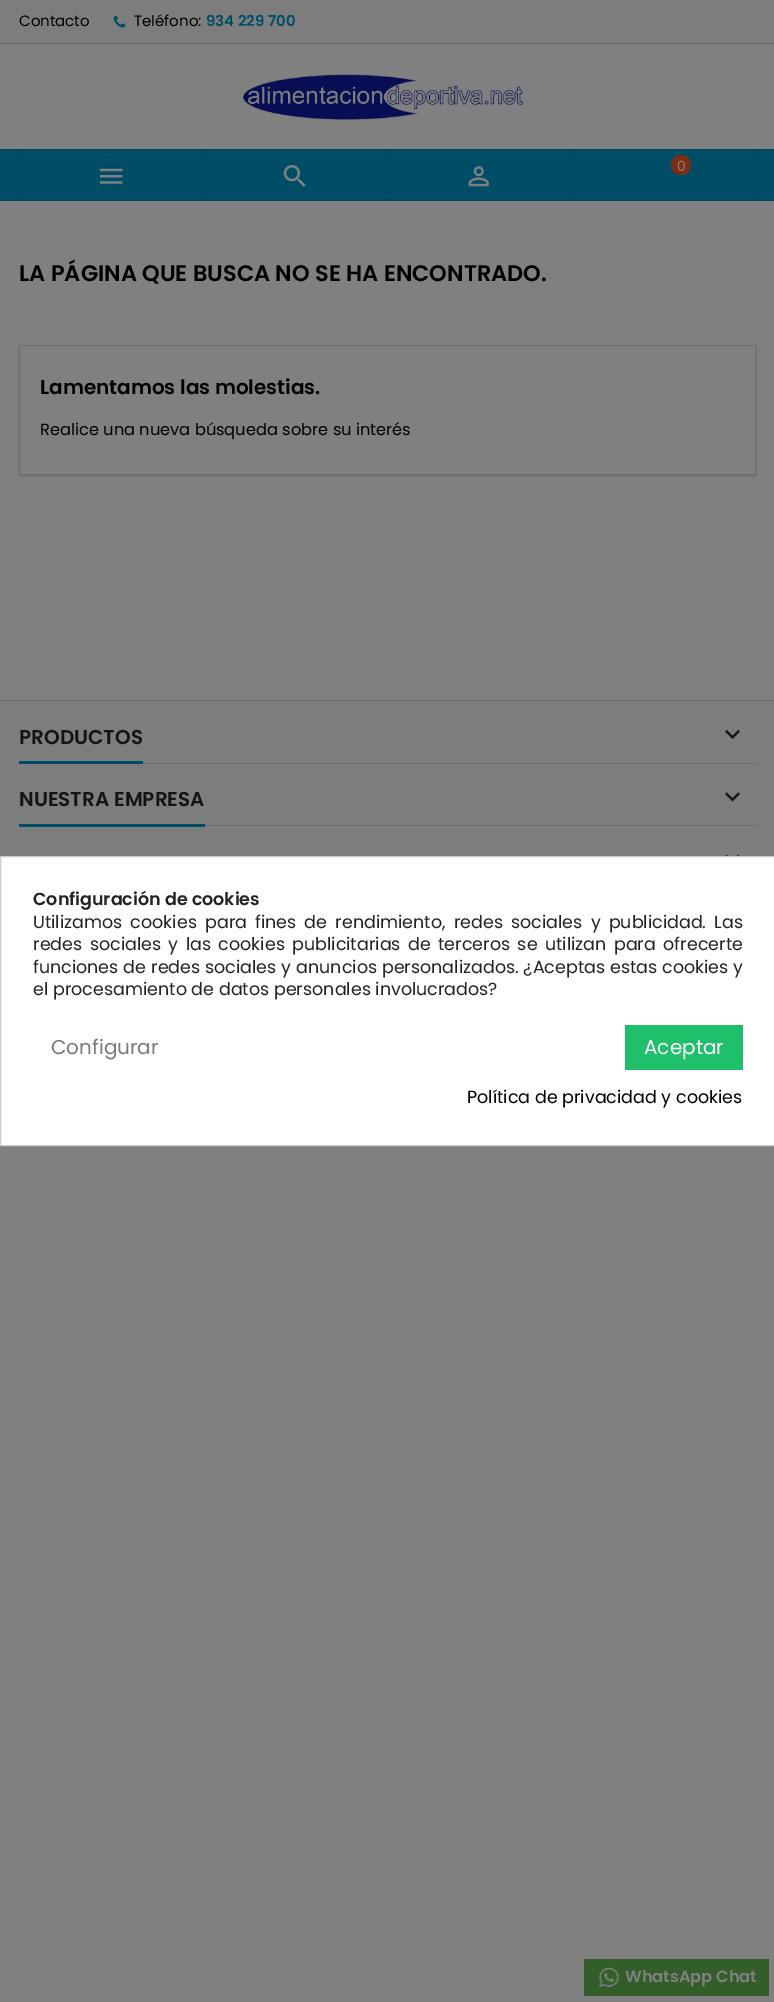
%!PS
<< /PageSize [774 2002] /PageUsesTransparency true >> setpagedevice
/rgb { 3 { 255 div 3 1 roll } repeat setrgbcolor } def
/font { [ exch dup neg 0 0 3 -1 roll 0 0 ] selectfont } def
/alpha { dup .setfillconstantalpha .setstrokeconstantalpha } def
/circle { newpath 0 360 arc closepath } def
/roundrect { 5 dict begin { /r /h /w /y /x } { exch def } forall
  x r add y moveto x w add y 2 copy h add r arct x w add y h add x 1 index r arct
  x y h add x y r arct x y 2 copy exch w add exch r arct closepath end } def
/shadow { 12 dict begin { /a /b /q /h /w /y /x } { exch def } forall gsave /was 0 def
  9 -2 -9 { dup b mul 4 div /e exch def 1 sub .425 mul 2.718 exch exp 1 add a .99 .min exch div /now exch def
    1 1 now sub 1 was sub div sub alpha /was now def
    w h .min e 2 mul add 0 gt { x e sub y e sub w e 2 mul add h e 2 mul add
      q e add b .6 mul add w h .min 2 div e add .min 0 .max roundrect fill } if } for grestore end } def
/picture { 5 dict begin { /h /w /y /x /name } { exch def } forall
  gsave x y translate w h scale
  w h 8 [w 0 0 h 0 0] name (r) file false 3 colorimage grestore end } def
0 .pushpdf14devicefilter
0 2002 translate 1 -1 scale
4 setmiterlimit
128 128 128 rgb
0 0 774 2002 rectfill
125 125 125 rgb
0 0 774 43 rectfill
107 106 106 rgb
0 43 774 1 rectfill
(img/1.rgb) 113 15 13 13 picture
(img/2.rgb) 243 74 280 46 picture
[
  [0 150 774 50 0 77 104]
  [0 149 774 1 0 70 94]
  [0 200 774 1 0 70 94]
  [203 150 1 50 0 70 94]
  [19 150 1 50 0 70 94]
] { aload pop rgb rectfill } forall
(img/3.rgb) 100 168 23 16 picture
386 150 1 50 rectfill
(img/4.rgb) 283 165 23 22 picture
571 150 1 50 rectfill
(img/5.rgb) 468 166 21 21 picture
755 150 1 50 rectfill
128 44 17 rgb
681 165 10 circle fill
gsave
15 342 moveto 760 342 lineto 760 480 lineto 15 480 lineto closepath 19 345 moveto 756 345 lineto 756 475 lineto 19 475 lineto closepath eoclip newpath
0 0 0 rgb
19 346 737 130 0 1 0.2 shadow
grestore
112 112 112 rgb
19.5 345.5 736 129 rectstroke
[
  [0 701 774 155 125 125 125]
  [0 700 774 1 109 109 109]
  [143 763 613 1 109 109 109]
  [19 761 124 3 0 77 104]
] { aload pop rgb rectfill } forall
(img/6.rgb) 725 729 15 10 picture
109 109 109 rgb
205 825 551 1 rectfill
0 77 104 rgb
19 824 186 3 rectfill
(img/7.rgb) 725 792 15 10 picture
(img/8.rgb) 725 854 15 2 picture
51 94 42 rgb
584 1959 185 37 rectfill
(img/9.rgb) 598 1967 22 21 picture
255 255 255 rgb
0.5 856.5 moveto 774.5 856.5 lineto 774.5 1145.5 lineto 0.5 1145.5 lineto closepath gsave fill grestore
204 204 204 rgb
stroke
32 191 107 rgb
625 1025 118 45 rectfill
/Poppins-Regular 15 font
0 0 0 rgb
19 26 moveto (Contacto) show
134 26 moveto (Teléfono:) show
/Poppins-SemiBold 15 font
0 77 104 rgb
206 26 moveto (934 229 700) show
/Poppins-Regular 14 font
128 128 128 rgb
677 171 moveto (0) show
/Poppins-SemiBold 22.5 font
0 0 0 rgb
19 281 moveto (LA PÁGINA QUE BUSCA NO SE HA ENCONTRADO.) show
/Poppins-SemiBold 20 font
40 394 moveto (Lamentamos las molestias.) show
/Poppins-Regular 16.25 font
40 435 moveto (Realice una nueva búsqueda sobre su interés) show
/Poppins-SemiBold 20 font
20 20 20 rgb
19 744 moveto (PRODUCTOS) show
19 806 moveto (NUESTRA EMPRESA) show
/Poppins-SemiBold 16.25 font
128 128 128 rgb
625 1982 moveto (WhatsApp Chat) show
/Poppins-SemiBold 17.5 font
35 35 35 rgb
33 905 moveto (Configuración de cookies) show
/Poppins-Regular 17.5 font
33 928 moveto 3.5 0 32 (Utilizamos cookies para fines de rendimiento, redes sociales y publicidad. Las) widthshow
33 950 moveto 2.75 0 32 (redes sociales y las cookies publicitarias de terceros se utilizan para ofrecerte) widthshow
33 973 moveto 0.25 0 32 (funciones de redes sociales y anuncios personalizados. ¿Aceptas estas cookies y) widthshow
33 995 moveto (el procesamiento de datos personales involucrados?) show
/Poppins-Regular 20 font
122 122 122 rgb
51 1054 moveto (Configurar) show
255 255 255 rgb
644 1054 moveto (Aceptar) show
/Poppins-Regular 17.5 font
0 0 0 rgb
467 1103 moveto (Política de privacidad y cookies) show
.poppdf14devicefilter showpage
